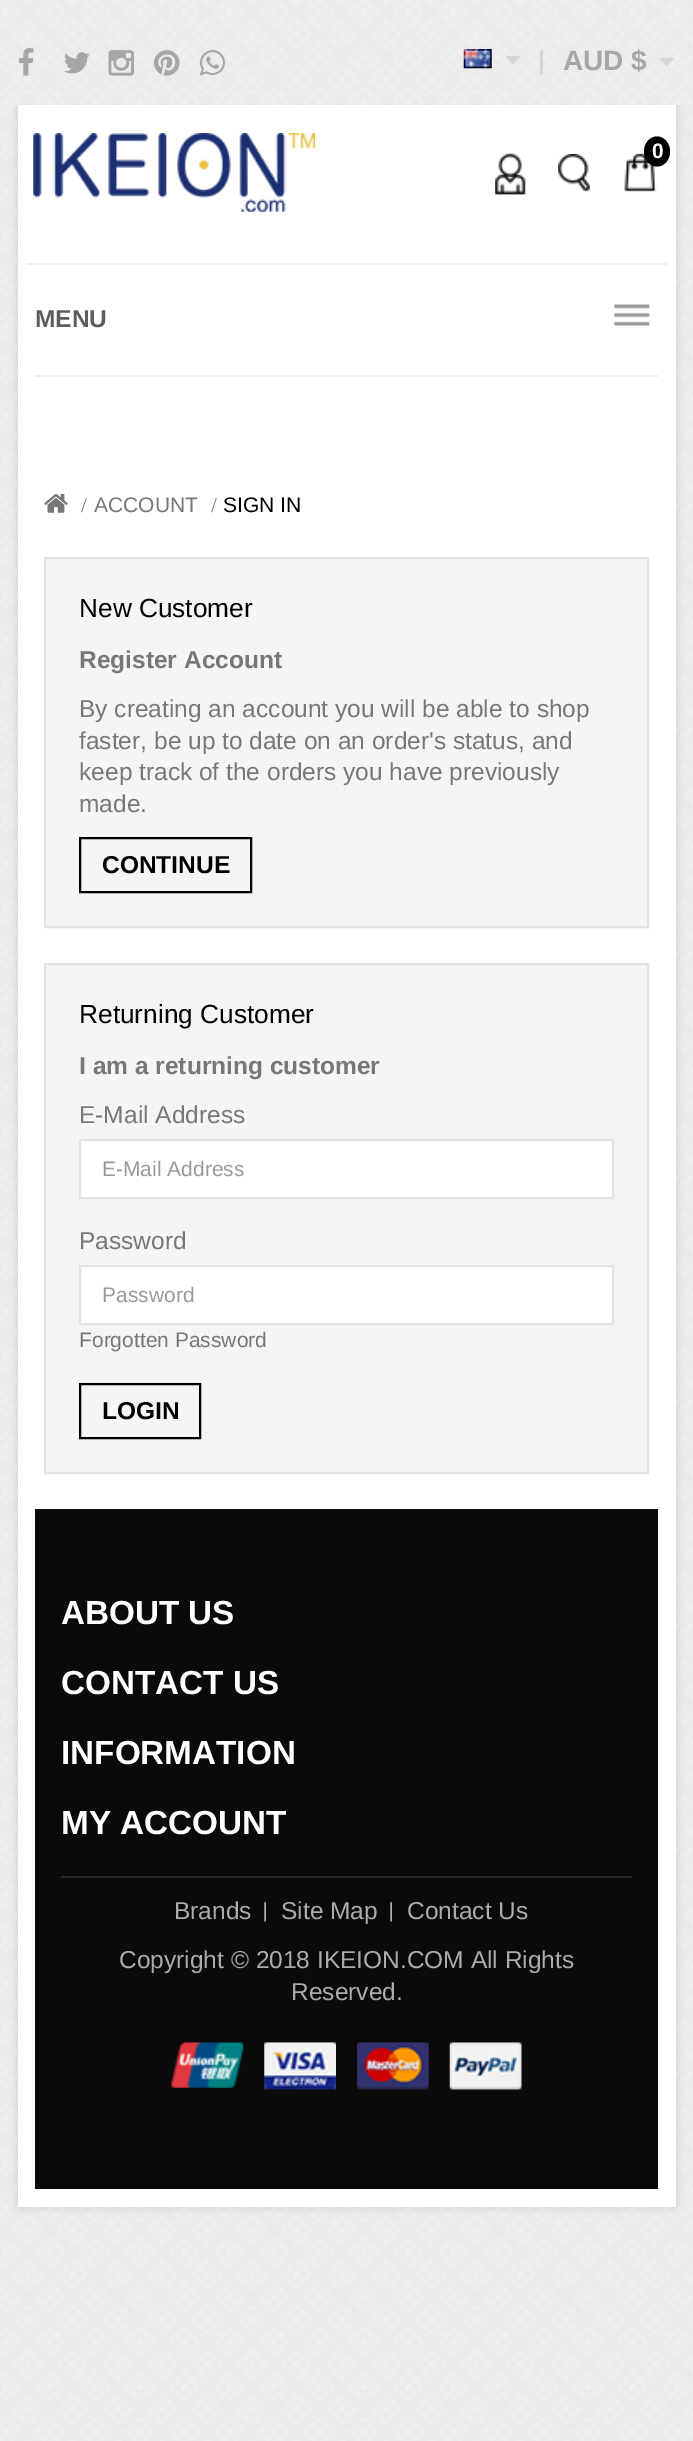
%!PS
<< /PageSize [693 2441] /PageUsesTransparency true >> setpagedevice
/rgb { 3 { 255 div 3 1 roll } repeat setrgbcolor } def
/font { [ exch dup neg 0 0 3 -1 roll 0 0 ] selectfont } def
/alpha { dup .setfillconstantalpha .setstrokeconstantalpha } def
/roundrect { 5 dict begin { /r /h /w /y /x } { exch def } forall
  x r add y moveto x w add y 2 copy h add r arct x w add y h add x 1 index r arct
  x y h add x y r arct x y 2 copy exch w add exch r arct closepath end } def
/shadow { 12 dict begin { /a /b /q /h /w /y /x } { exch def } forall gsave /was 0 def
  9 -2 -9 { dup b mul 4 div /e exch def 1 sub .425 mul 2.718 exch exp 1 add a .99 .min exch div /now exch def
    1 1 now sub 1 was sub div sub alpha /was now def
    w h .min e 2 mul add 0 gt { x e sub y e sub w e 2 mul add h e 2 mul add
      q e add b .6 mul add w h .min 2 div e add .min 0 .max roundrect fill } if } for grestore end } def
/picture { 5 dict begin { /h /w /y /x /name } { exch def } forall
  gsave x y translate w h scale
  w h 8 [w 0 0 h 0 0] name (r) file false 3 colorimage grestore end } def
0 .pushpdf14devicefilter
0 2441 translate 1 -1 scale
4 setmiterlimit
255 255 255 rgb
0 0 693 2441 rectfill
(img/1.rgb) 0 105 693 2336 picture
0 0 0 rgb
18 105 658 2102 0 4.5 0.12 shadow
(img/2.rgb) 0 0 693 105 picture
(img/3.rgb) 19 48 15 28 picture
(img/4.rgb) 64 52 26 22 picture
(img/5.rgb) 108 50 26 26 picture
(img/6.rgb) 154 50 26 26 picture
(img/7.rgb) 199 50 26 26 picture
212 212 212 rgb
540 50 3 24 rectfill
(img/8.rgb) 463 49 29 20 picture
(img/9.rgb) 506 56 14 8 picture
(img/10.rgb) 660 57 14 9 picture
255 255 255 rgb
18 105 658 2102 rectfill
238 238 238 rgb
35 375 623 2 rectfill
(img/11.rgb) 33 133 282 79 picture
(img/12.rgb) 624 153 33 39 picture
0 0 0 rgb
657 136.5 moveto 664 136.5 670 143 670 151.5 curveto 670 160 664 166.5 657 166.5 curveto 650 166.5 644 160 644 151.5 curveto 644 143 650 136.5 657 136.5 curveto closepath fill
(img/13.rgb) 495 153 31 42 picture
(img/14.rgb) 558 154 32 38 picture
238 238 238 rgb
26 263 641 2 rectfill
(img/15.rgb) 613 304 37 22 picture
(img/16.rgb) 44 494 24 19 picture
245 245 245 rgb
45 558 moveto 648 558 lineto 648 927 lineto 45 927 lineto closepath gsave fill grestore
227 227 227 rgb
2 setlinewidth
stroke
0 0 0 rgb
80 838 171 54 rectstroke
245 245 245 rgb
45 964 moveto 648 964 lineto 648 1473 lineto 45 1473 lineto closepath gsave fill grestore
227 227 227 rgb
stroke
255 255 255 rgb
80 1140 moveto 613 1140 lineto 613 1198 lineto 80 1198 lineto closepath gsave fill grestore
228 228 228 rgb
stroke
255 255 255 rgb
80 1266 moveto 613 1266 lineto 613 1324 lineto 80 1324 lineto closepath gsave fill grestore
228 228 228 rgb
stroke
0 0 0 rgb
80 1384 120 54 rectstroke
10 10 10 rgb
35 1509 623 680 rectfill
40 40 40 rgb
61 1876 571 2 rectfill
(img/17.rgb) 264 1902 2 20 picture
(img/17.rgb) 390 1902 2 20 picture
(img/18.rgb) 171 2042 73 46 picture
(img/19.rgb) 264 2042 72 48 picture
(img/20.rgb) 357 2042 72 48 picture
(img/21.rgb) 449 2042 73 48 picture
/LiberationSans-Bold 28 font
166 166 166 rgb
563 70 moveto (AUD $) show
/LiberationSans-Bold 21 font
255 255 255 rgb
652 158 moveto (0) show
/LiberationSans-Bold 24.5 font
93 93 93 rgb
35 327 moveto (MENU) show
/LiberationSerif-Regular 21 font
119 119 119 rgb
81 512 moveto (/) show
/LiberationSans-Regular 21 font
94 512 moveto (ACCOUNT) show
/LiberationSerif-Regular 21 font
211 512 moveto (/) show
/LiberationSans-Regular 21 font
0 0 0 rgb
223 512 moveto (SIGN IN) show
/LiberationSans-Regular 26.25 font
79 617 moveto (New Customer) show
/LiberationSans-Bold 24.5 font
119 119 119 rgb
79 668 moveto (Register Account) show
/LiberationSans-Regular 24.5 font
[
  [(By creating an account you will be able to shop) 79 717]
  [(faster, be up to date on an order's status, and) 79 749]
  [(keep track of the orders you have previously) 79 780]
  [(made.) 79 812]
] { aload pop moveto show } forall
/LiberationSans-Bold 24.5 font
0 0 0 rgb
102 873 moveto (CONTINUE) show
/LiberationSans-Regular 26.25 font
79 1023 moveto (Returning Customer) show
/LiberationSans-Bold 24.5 font
119 119 119 rgb
79 1074 moveto (I am a returning customer) show
/LiberationSans-Regular 24.5 font
79 1123 moveto (E-Mail Address) show
/LiberationSans-Regular 21 font
153 153 153 rgb
102 1176 moveto (E-Mail Address) show
/LiberationSans-Regular 24.5 font
119 119 119 rgb
79 1249 moveto (Password) show
/LiberationSans-Regular 21 font
153 153 153 rgb
102 1302 moveto (Password) show
119 119 119 rgb
79 1347 moveto (Forgotten Password) show
/LiberationSans-Bold 24.5 font
0 0 0 rgb
102 1419 moveto (LOGIN) show
/LiberationSans-Bold 33.25 font
255 255 255 rgb
[
  [(ABOUT US) 61 1624]
  [(CONTACT US) 61 1694]
  [(INFORMATION) 61 1764]
  [(MY ACCOUNT) 61 1834]
] { aload pop moveto show } forall
/LiberationSans-Regular 24.5 font
172 172 172 rgb
[
  [(Brands) 174 1919]
  [(Site Map) 281 1919]
  [(Contact Us) 407 1919]
  [(Copyright © 2018 IKEION.COM All Rights) 119 1968]
  [(Reserved.) 291 2000]
] { aload pop moveto show } forall
.poppdf14devicefilter showpage
